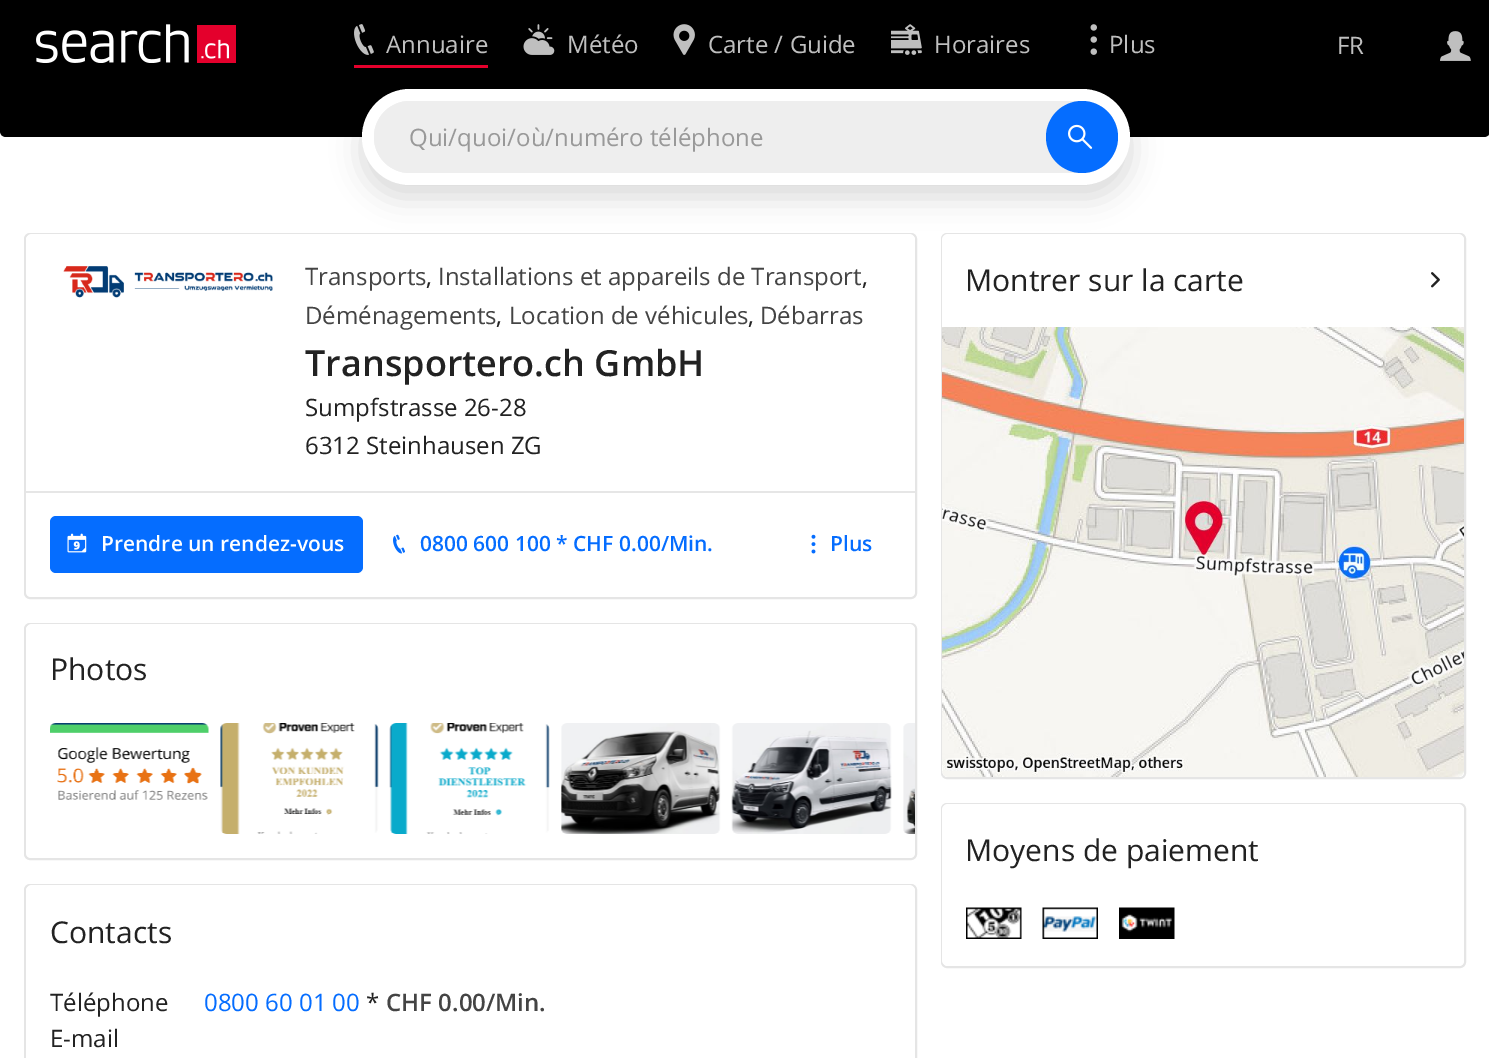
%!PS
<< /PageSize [1489 1058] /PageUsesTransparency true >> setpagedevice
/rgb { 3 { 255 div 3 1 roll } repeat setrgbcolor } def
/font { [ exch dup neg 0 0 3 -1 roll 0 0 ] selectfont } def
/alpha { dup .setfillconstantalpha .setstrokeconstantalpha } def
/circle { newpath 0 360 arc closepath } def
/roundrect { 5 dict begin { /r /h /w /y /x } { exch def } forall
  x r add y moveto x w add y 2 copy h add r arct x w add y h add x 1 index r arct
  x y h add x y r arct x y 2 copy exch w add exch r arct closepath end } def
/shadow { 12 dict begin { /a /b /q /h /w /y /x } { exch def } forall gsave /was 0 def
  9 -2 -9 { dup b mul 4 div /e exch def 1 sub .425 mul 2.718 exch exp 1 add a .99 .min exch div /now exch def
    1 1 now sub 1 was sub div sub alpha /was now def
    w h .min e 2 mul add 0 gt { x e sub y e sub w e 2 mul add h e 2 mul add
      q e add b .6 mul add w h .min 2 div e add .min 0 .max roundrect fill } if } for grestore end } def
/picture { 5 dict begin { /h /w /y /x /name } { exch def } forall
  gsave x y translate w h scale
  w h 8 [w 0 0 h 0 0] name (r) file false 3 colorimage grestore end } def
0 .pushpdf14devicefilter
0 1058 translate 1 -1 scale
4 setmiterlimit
255 255 255 rgb
0 0 1489 1058 rectfill
0 0 0 rgb
0 0 1489 89 rectfill
(img/1.rgb) 36 24 200 39 picture
228 0 44 rgb
354 65 134 3 rectfill
(img/2.rgb) 354 24 20 31 picture
(img/3.rgb) 523 24 32 31 picture
(img/4.rgb) 673 24 22 31 picture
(img/5.rgb) 891 24 31 31 picture
(img/6.rgb) 1090 24 7 31 picture
(img/7.rgb) 1440 31 31 30 picture
0 0 0 rgb
0 89 moveto 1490 89 lineto 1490 131 lineto 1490 134.5 1487.5 137 1484 137 curveto 6 137 lineto 2.5 137 0 134.5 0 131 curveto closepath fill
229 229 229 rgb
2 setlinewidth
25 234 891 364 5 roundrect stroke
gsave
26 234 889 363 5 roundrect clip newpath
255 255 255 rgb
26 234 889 363 6 roundrect fill
grestore
942 234 523 544 5 roundrect stroke
gsave
942 234 522 543 5 roundrect clip newpath
255 255 255 rgb
942 234 522 543 6 roundrect fill
grestore
0 0 0 rgb
362 101 768 96 48 15 0.15 shadow
255 255 255 rgb
362 89 768 96 48 roundrect fill
238 238 238 rgb
374 101 744 72 36 roundrect fill
374 101 672 72 36 roundrect fill
5 109 255 rgb
1082 137 36 circle fill
(img/8.rgb) 1068 124 25 25 picture
(img/9.rgb) 63 266 210 32 picture
230 230 230 rgb
26 491 889 2 rectfill
5 109 255 rgb
50 516 313 57 6 roundrect fill
(img/10.rgb) 67 533 20 20 picture
(img/11.rgb) 393 534 12 20 picture
(img/12.rgb) 811 534 5 20 picture
229 229 229 rgb
25 624 891 235 5 roundrect stroke
gsave
26 624 889 234 5 roundrect clip newpath
255 255 255 rgb
26 624 889 234 6 roundrect fill
grestore
(img/13.rgb) 50 723 159 77 picture
(img/14.rgb) 220 723 159 111 picture
(img/15.rgb) 389 723 161 111 picture
(img/16.rgb) 561 723 160 111 picture
(img/17.rgb) 731 723 161 111 picture
(img/18.rgb) 903 723 12 111 picture
25 885 891 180 5 roundrect stroke
gsave
26 885 889 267 5 roundrect clip newpath
255 255 255 rgb
26 885 889 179 6 roundrect fill
grestore
(img/19.rgb) 1431 272 9 16 picture
(img/20.rgb) 942 327 522 450 picture
942 804 523 163 5 roundrect stroke
gsave
942 804 522 162 5 roundrect clip newpath
255 255 255 rgb
942 804 522 162 6 roundrect fill
grestore
(img/21.rgb) 966 907 56 32 picture
(img/22.rgb) 1042 907 56 32 picture
(img/23.rgb) 1119 907 56 32 picture
/OpenSans-Regular 24 font
191 191 191 rgb
[
  [(Annuaire) 386 53]
  [(Météo) 567 53]
  [(Carte / Guide) 708 53]
  [(Horaires) 934 53]
  [(Plus) 1109 53]
  [(FR) 1337 54]
] { aload pop moveto show } forall
153 153 153 rgb
409 146 moveto (Qui/quoi/où/numéro téléphone) show
68 68 68 rgb
305 285 moveto (Transports) show
34 34 34 rgb
426 285 moveto (,) show
68 68 68 rgb
438 285 moveto (Installations et appareils de Transport) show
34 34 34 rgb
862 285 moveto (,) show
68 68 68 rgb
305 324 moveto (Déménagements) show
34 34 34 rgb
496 324 moveto (,) show
68 68 68 rgb
509 324 moveto (Location de véhicules) show
34 34 34 rgb
748 324 moveto (,) show
68 68 68 rgb
760 324 moveto (Débarras) show
/OpenSans-SemiBold 36 font
34 34 34 rgb
305 376 moveto (Transportero.ch GmbH) show
/OpenSans-Regular 24 font
305 416 moveto (Sumpfstrasse 26-28) show
305 454 moveto (6312 Steinhausen ZG) show
/OpenSans-SemiBold 21 font
255 255 255 rgb
101 551 moveto (Prendre un rendez-vous) show
5 109 255 rgb
420 551 moveto (0800 600 100 * CHF 0.00/Min.) show
830 551 moveto (Plus) show
/OpenSans-Regular 30 font
34 34 34 rgb
50 680 moveto (Photos) show
50 943 moveto (Contacts) show
/OpenSans-Regular 24 font
50 1011 moveto (Téléphone) show
5 109 255 rgb
204 1011 moveto (0800 60 01 00) show
34 34 34 rgb
366 1011 moveto (*) show
/OpenSans-SemiBold 24 font
68 68 68 rgb
386 1011 moveto (CHF 0.00/Min.) show
/OpenSans-Regular 24 font
34 34 34 rgb
50 1047 moveto (E-mail) show
/OpenSans-Regular 30 font
965 291 moveto (Montrer sur la carte) show
965 861 moveto (Moyens de paiement) show
.poppdf14devicefilter showpage
